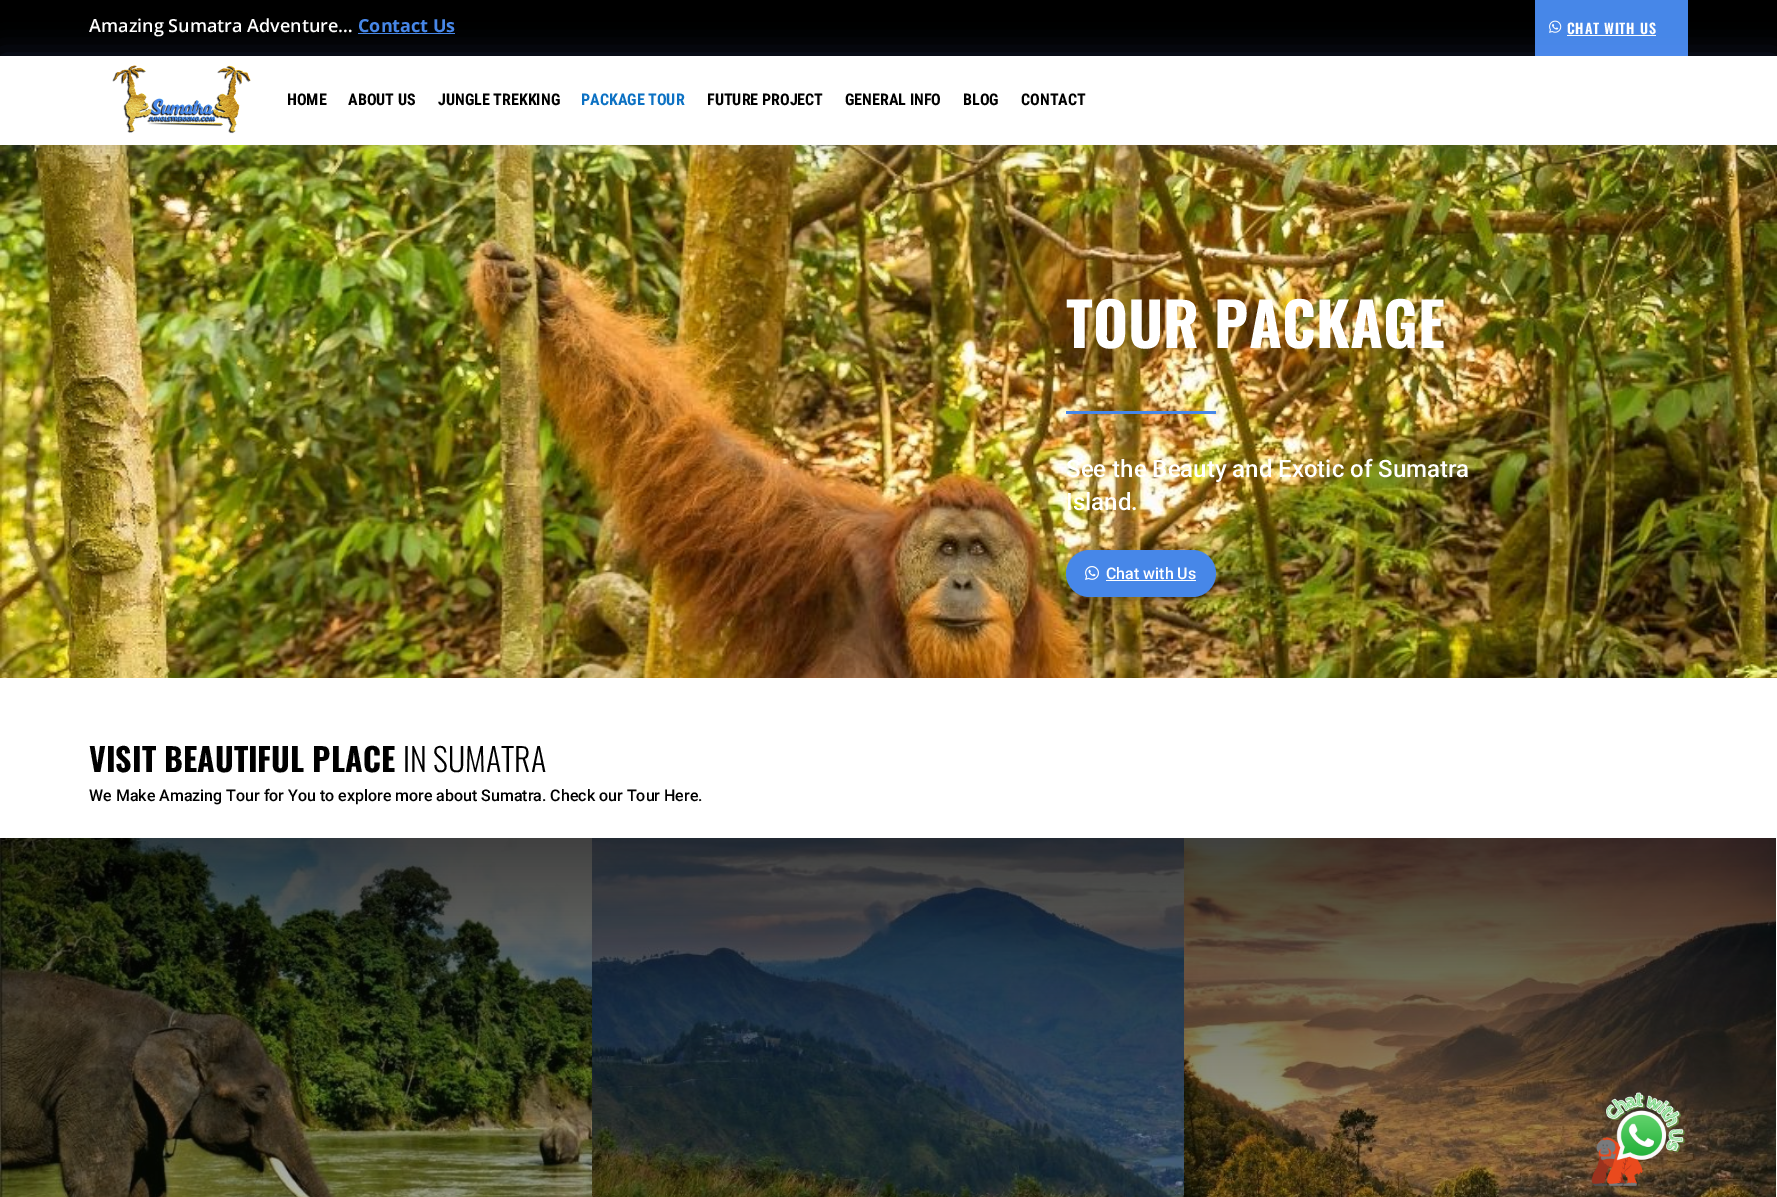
%!PS
<< /PageSize [1777 1197] /PageUsesTransparency true >> setpagedevice
/rgb { 3 { 255 div 3 1 roll } repeat setrgbcolor } def
/font { [ exch dup neg 0 0 3 -1 roll 0 0 ] selectfont } def
/alpha { dup .setfillconstantalpha .setstrokeconstantalpha } def
/roundrect { 5 dict begin { /r /h /w /y /x } { exch def } forall
  x r add y moveto x w add y 2 copy h add r arct x w add y h add x 1 index r arct
  x y h add x y r arct x y 2 copy exch w add exch r arct closepath end } def
/shadow { 12 dict begin { /a /b /q /h /w /y /x } { exch def } forall gsave /was 0 def
  9 -2 -9 { dup b mul 4 div /e exch def 1 sub .425 mul 2.718 exch exp 1 add a .99 .min exch div /now exch def
    1 1 now sub 1 was sub div sub alpha /was now def
    w h .min e 2 mul add 0 gt { x e sub y e sub w e 2 mul add h e 2 mul add
      q e add b .6 mul add w h .min 2 div e add .min 0 .max roundrect fill } if } for grestore end } def
/picture { 5 dict begin { /h /w /y /x /name } { exch def } forall
  gsave x y translate w h scale
  w h 8 [w 0 0 h 0 0] name (r) file false 3 colorimage grestore end } def
0 .pushpdf14devicefilter
0 1197 translate 1 -1 scale
4 setmiterlimit
255 255 255 rgb
0 0 1777 1197 rectfill
[
  [0 0 1777 56 0 0 0]
  [358 33 97 1 71 135 232]
  [1535 0 153 56 71 135 232]
] { aload pop rgb rectfill } forall
(img/1.rgb) 1549 20 13 13 picture
255 255 255 rgb
1567 35 89 1 rectfill
(img/3.rgb) 0 145 1777 533 picture
gsave
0 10 moveto 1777 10 lineto 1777 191 lineto 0 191 lineto closepath 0 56 moveto 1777 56 lineto 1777 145 lineto 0 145 lineto closepath eoclip newpath
103 151 255 rgb
0 56 1777 89 0 15 0.17 shadow
grestore
(img/2.rgb) 112 65 139 69 picture
71 135 232 rgb
1066 411 150 3 rectfill
0 0 0 rgb
1072 568 138 35 17.5 9 0.3 shadow
71 135 232 rgb
1066 550 150 47 23.5 roundrect fill
(img/4.rgb) 1085 566 14 14 picture
255 255 255 rgb
1106 580 90 1 rectfill
(img/5.rgb) 0 838 592 359 picture
(img/6.rgb) 592 838 592 359 picture
(img/7.rgb) 1184 838 592 359 picture
(img/8.rgb) 1591 1092 94 95 picture
/OpenSans-SemiBold 18 font
89 32 moveto (Amazing Sumatra Adventure…) show
/OpenSans-Bold 18 font
71 135 232 rgb
358 32 moveto (Contact Us) show
/Oswald-SemiBold 14 font
255 255 255 rgb
1567 34 moveto 0.75 0 (CHAT WITH US) ashow
/RobotoCondensed-Bold 16 font
0 0 0 rgb
[
  [(HOME) 287 105]
  [(ABOUT US) 348 105]
  [(JUNGLE TREKKING) 438 105]
] { aload pop moveto show } forall
12 113 195 rgb
581 105 moveto (PACKAGE TOUR) show
0 0 0 rgb
[
  [(FUTURE PROJECT) 707 105]
  [(GENERAL INFO) 845 105]
  [(BLOG) 963 105]
  [(CONTACT) 1021 105]
] { aload pop moveto show } forall
/Oswald-Bold 60 font
255 255 255 rgb
1066 348 moveto (TOUR PACKAGE) show
/Roboto-Medium 24 font
1066 477 moveto (See the Beauty and Exotic of Sumatra) show
1066 510 moveto (Island.) show
/Roboto-Medium 16 font
1106 579 moveto (Chat with Us) show
/Oswald-Bold 32 font
0 0 0 rgb
89 772 moveto (VISIT BEAUTIFUL PLACE) show
/Oswald-Light 32 font
403 772 moveto (IN SUMATRA) show
/Roboto-Medium 16 font
89 801 moveto (We Make Amazing Tour for You to explore more about Sumatra. Check our Tour Here.) show
.poppdf14devicefilter showpage
